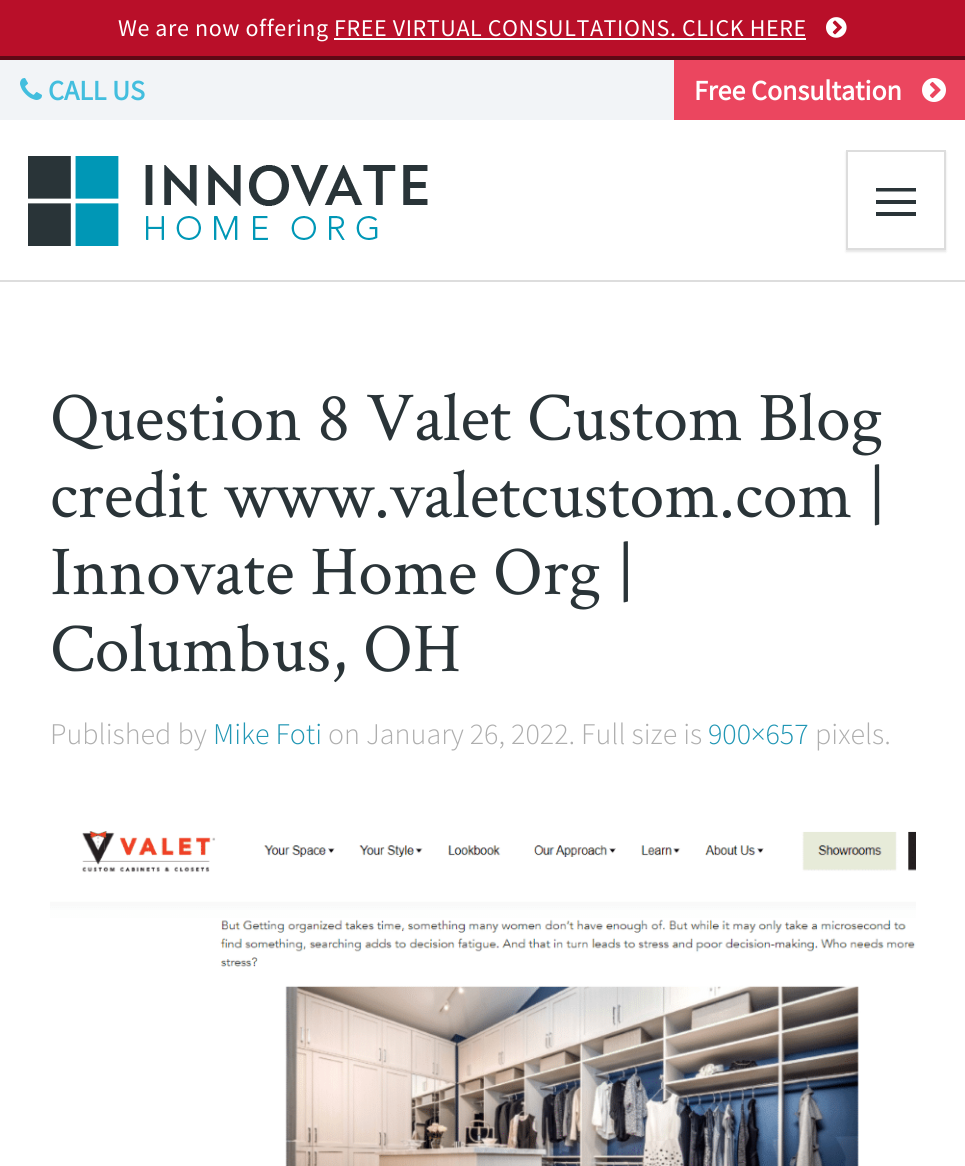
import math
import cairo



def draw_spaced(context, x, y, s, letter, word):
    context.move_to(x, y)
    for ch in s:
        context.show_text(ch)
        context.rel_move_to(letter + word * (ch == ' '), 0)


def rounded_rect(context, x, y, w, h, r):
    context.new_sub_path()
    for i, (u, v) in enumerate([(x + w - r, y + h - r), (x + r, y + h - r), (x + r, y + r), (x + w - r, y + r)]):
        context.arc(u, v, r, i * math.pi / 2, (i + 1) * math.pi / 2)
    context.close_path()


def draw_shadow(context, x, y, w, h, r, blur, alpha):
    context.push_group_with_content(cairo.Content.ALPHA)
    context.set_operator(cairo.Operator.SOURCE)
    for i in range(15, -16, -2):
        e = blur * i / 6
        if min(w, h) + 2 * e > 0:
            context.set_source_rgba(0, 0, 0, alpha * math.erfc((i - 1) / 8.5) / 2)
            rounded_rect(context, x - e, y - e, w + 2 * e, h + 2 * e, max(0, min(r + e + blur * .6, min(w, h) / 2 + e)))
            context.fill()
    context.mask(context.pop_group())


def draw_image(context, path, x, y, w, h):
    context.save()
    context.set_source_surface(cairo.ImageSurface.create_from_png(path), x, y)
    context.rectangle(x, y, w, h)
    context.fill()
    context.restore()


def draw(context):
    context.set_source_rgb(1, 1, 1)
    context.paint()
    context.set_source_rgb(185 / 255, 15 / 255, 41 / 255)
    context.rectangle(0, 0, 965, 56)
    context.fill()
    context.set_source_rgb(95 / 255, 9 / 255, 22 / 255)
    context.rectangle(0, 56, 965, 4)
    context.fill()
    draw_image(context, "images/1.png", 826, 17, 21, 21)
    context.set_source_rgb(1, 1, 1)
    context.rectangle(334, 38, 472, 2)
    context.fill()
    context.set_source_rgb(242 / 255, 244 / 255, 247 / 255)
    context.rectangle(0, 60, 674, 60)
    context.fill()
    draw_image(context, "images/2.png", 20, 78, 22, 22)
    context.set_source_rgb(235 / 255, 70 / 255, 95 / 255)
    context.rectangle(674, 60, 291, 60)
    context.fill()
    draw_image(context, "images/3.png", 922, 78, 24, 24)
    context.set_source_rgb(221 / 255, 221 / 255, 221 / 255)
    context.rectangle(0, 280, 965, 2)
    context.fill()
    draw_image(context, "images/4.png", 28, 156, 400, 90)
    context.save()
    context.set_fill_rule(cairo.FillRule.EVEN_ODD)
    context.new_path()
    context.move_to(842, 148)
    context.line_to(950, 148)
    context.line_to(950, 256)
    context.line_to(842, 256)
    context.close_path()
    context.move_to(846, 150)
    context.line_to(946, 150)
    context.line_to(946, 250)
    context.line_to(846, 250)
    context.close_path()
    context.clip()
    context.set_source_rgb(0, 0, 0)
    draw_shadow(context, 846, 152, 100, 100, 0, 1, 0.1)
    context.restore()
    context.rectangle(847, 151, 98, 98)
    context.stroke()
    context.set_source_rgb(42 / 255, 52 / 255, 56 / 255)
    context.new_path()
    context.move_to(876, 188)
    context.line_to(916, 188)
    context.line_to(916, 191.5)
    context.line_to(876, 191.5)
    context.close_path()
    context.move_to(876, 200)
    context.line_to(916, 200)
    context.line_to(916, 204)
    context.line_to(876, 204)
    context.close_path()
    context.move_to(876, 212)
    context.line_to(916, 212)
    context.line_to(916, 216)
    context.line_to(876, 216)
    context.close_path()
    context.fill()
    draw_image(context, "images/5.png", 50, 831, 866, 335)
    context.select_font_face("Source Sans Pro")
    context.set_font_size(24)
    context.set_source_rgb(1, 1, 1)
    draw_spaced(context, 118, 36, "We are now offering FREE VIRTUAL CONSULTATIONS. CLICK HERE", 0.6, 0)
    context.select_font_face("Source Sans Pro", cairo.FontSlant.NORMAL, cairo.FontWeight.BOLD)
    context.set_font_size(28)
    context.set_source_rgb(67 / 255, 190 / 255, 222 / 255)
    context.move_to(48, 100)
    context.show_text("CALL US")
    context.set_source_rgb(1, 1, 1)
    context.move_to(694, 100)
    context.show_text("Free Consultation")
    context.select_font_face("Crimson Text")
    context.set_font_size(70)
    context.set_source_rgb(42 / 255, 52 / 255, 56 / 255)
    context.move_to(50, 440)
    context.show_text("Question 8 Valet Custom Blog")
    context.move_to(50, 517)
    context.show_text("credit www.valetcustom.com |")
    context.move_to(50, 594)
    context.show_text("Innovate Home Org |")
    context.move_to(50, 671)
    context.show_text("Columbus, OH")
    context.select_font_face("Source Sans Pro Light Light")
    context.set_font_size(30)
    context.set_source_rgb(174 / 255, 174 / 255, 174 / 255)
    context.move_to(50, 744)
    context.show_text("Published by")
    context.set_source_rgb(32 / 255, 150 / 255, 180 / 255)
    context.move_to(213, 744)
    context.show_text("Mike Foti")
    context.set_source_rgb(174 / 255, 174 / 255, 174 / 255)
    context.move_to(328, 744)
    context.show_text("on January 26, 2022. Full size is")
    context.set_source_rgb(32 / 255, 150 / 255, 180 / 255)
    context.move_to(708, 744)
    context.show_text("900×657")
    context.set_source_rgb(174 / 255, 174 / 255, 174 / 255)
    context.move_to(815, 744)
    context.show_text("pixels.")


surface = cairo.ImageSurface(cairo.Format.RGB24, 965, 1166)
context = cairo.Context(surface)
options = cairo.FontOptions()
options.set_hint_metrics(cairo.HintMetrics.OFF)
options.set_hint_style(cairo.HintStyle.NONE)
context.set_font_options(options)
context.set_miter_limit(4)
draw(context)
surface.write_to_png("out.png")
